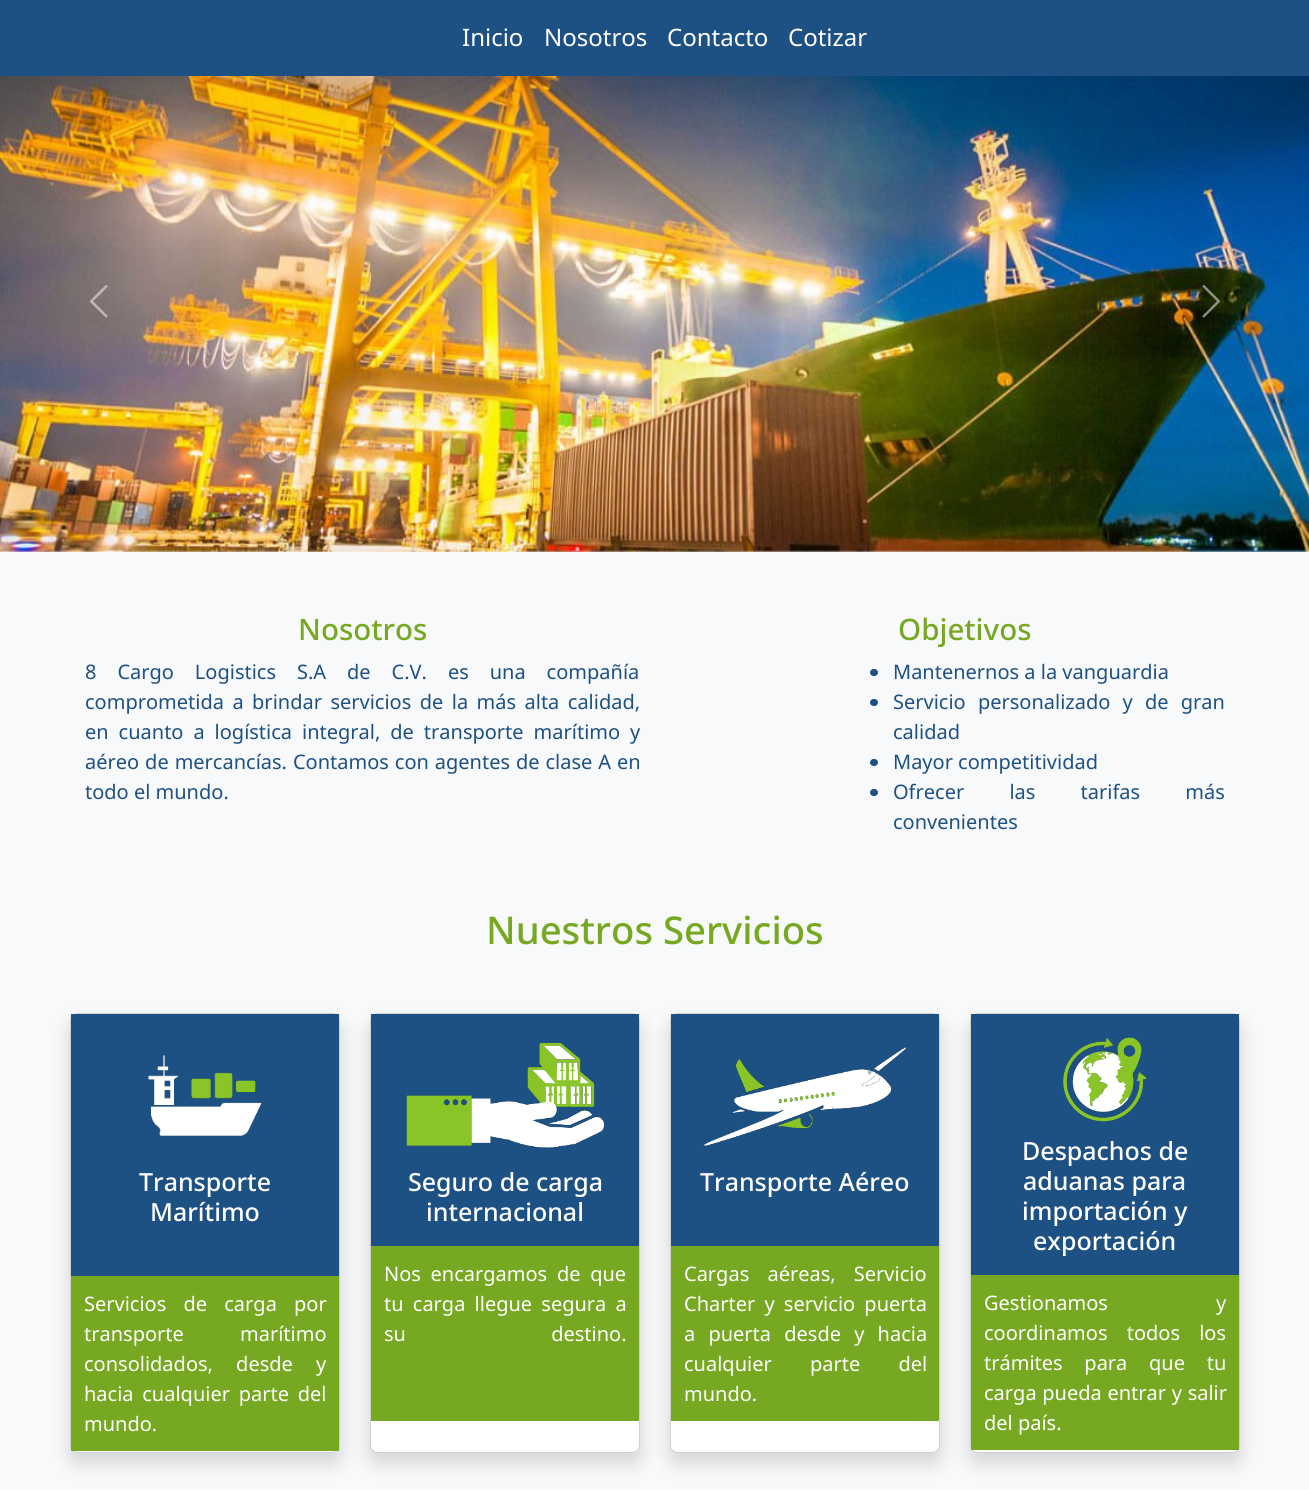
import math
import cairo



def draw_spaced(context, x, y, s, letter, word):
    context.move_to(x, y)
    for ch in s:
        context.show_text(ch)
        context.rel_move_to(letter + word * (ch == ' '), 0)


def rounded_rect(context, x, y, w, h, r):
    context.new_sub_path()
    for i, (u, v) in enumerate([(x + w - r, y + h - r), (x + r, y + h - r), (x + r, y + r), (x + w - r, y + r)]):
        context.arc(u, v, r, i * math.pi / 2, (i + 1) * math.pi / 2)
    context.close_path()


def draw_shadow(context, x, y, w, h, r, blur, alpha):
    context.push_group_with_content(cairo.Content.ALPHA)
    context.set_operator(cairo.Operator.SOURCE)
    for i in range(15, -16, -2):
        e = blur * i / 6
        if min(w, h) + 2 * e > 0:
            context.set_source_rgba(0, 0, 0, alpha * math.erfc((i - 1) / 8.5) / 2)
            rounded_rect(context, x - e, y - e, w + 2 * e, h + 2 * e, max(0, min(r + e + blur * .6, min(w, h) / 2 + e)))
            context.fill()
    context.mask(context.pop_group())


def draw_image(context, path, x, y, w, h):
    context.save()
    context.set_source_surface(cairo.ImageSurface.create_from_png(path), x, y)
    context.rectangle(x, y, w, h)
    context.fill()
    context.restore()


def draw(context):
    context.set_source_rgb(1, 1, 1)
    context.paint()
    context.set_source_rgb(29 / 255, 80 / 255, 131 / 255)
    context.rectangle(0, 0, 1309, 76)
    context.fill()
    context.set_source_rgb(248 / 255, 249 / 255, 250 / 255)
    context.rectangle(0, 551, 1309, 939)
    context.fill()
    draw_image(context, "images/1.png", 0, 76, 1309, 476)
    draw_image(context, "images/2.png", 90, 285, 18, 33)
    draw_image(context, "images/3.png", 1202, 285, 18, 33)
    context.set_source_rgb(29 / 255, 80 / 255, 131 / 255)
    rounded_rect(context, 870, 669, 8, 7, 3.5)
    context.fill()
    rounded_rect(context, 870, 699, 8, 7, 3.5)
    context.fill()
    rounded_rect(context, 870, 759, 8, 7, 3.5)
    context.fill()
    rounded_rect(context, 870, 789, 8, 7, 3.5)
    context.fill()
    context.set_source_rgb(0, 0, 0)
    draw_shadow(context, 70, 1023, 270, 440, 8, 10, 0.15)
    context.set_source_rgb(1, 1, 1)
    rounded_rect(context, 70, 1013, 270, 440, 8)
    context.fill()
    rounded_rect(context, 70.5, 1013.5, 269, 439, 7.5)
    context.set_source_rgba(0, 0, 0, 0.18)
    context.set_line_width(1)
    context.stroke()
    context.set_source_rgb(29 / 255, 80 / 255, 131 / 255)
    context.rectangle(71, 1014, 268, 262)
    context.fill()
    draw_image(context, "images/4.png", 148, 1055, 114, 81)
    context.set_source_rgb(119 / 255, 168 / 255, 33 / 255)
    context.rectangle(71, 1276, 268, 175)
    context.fill()
    context.set_source_rgb(0, 0, 0)
    draw_shadow(context, 370, 1023, 270, 440, 8, 10, 0.15)
    context.set_source_rgb(1, 1, 1)
    rounded_rect(context, 370, 1013, 270, 440, 8)
    context.fill()
    rounded_rect(context, 370.5, 1013.5, 269, 439, 7.5)
    context.set_source_rgba(0, 0, 0, 0.18)
    context.stroke()
    context.set_source_rgb(29 / 255, 80 / 255, 131 / 255)
    context.rectangle(371, 1014, 268, 232)
    context.fill()
    draw_image(context, "images/5.png", 406, 1043, 199, 105)
    context.set_source_rgb(119 / 255, 168 / 255, 33 / 255)
    context.rectangle(371, 1246, 268, 175)
    context.fill()
    context.set_source_rgb(0, 0, 0)
    draw_shadow(context, 670, 1023, 270, 440, 8, 10, 0.15)
    context.set_source_rgb(1, 1, 1)
    rounded_rect(context, 670, 1013, 270, 440, 8)
    context.fill()
    rounded_rect(context, 670.5, 1013.5, 269, 439, 7.5)
    context.set_source_rgba(0, 0, 0, 0.18)
    context.stroke()
    context.set_source_rgb(29 / 255, 80 / 255, 131 / 255)
    context.rectangle(671, 1014, 268, 232)
    context.fill()
    draw_image(context, "images/6.png", 703, 1047, 203, 99)
    context.set_source_rgb(119 / 255, 168 / 255, 33 / 255)
    context.rectangle(671, 1246, 268, 175)
    context.fill()
    context.set_source_rgb(0, 0, 0)
    draw_shadow(context, 970, 1023, 270, 440, 8, 10, 0.15)
    context.set_source_rgb(1, 1, 1)
    rounded_rect(context, 970, 1013, 270, 440, 8)
    context.fill()
    rounded_rect(context, 970.5, 1013.5, 269, 439, 7.5)
    context.set_source_rgba(0, 0, 0, 0.18)
    context.stroke()
    context.set_source_rgb(29 / 255, 80 / 255, 131 / 255)
    context.rectangle(971, 1014, 268, 261)
    context.fill()
    draw_image(context, "images/7.png", 1063, 1037, 84, 85)
    context.set_source_rgb(119 / 255, 168 / 255, 33 / 255)
    context.rectangle(971, 1275, 268, 175)
    context.fill()
    context.select_font_face("Noto Sans")
    context.set_font_size(24)
    context.set_source_rgb(1, 1, 1)
    context.move_to(462, 46)
    context.show_text("Inicio")
    context.move_to(544, 46)
    context.show_text("Nosotros")
    context.move_to(667, 46)
    context.show_text("Contacto")
    context.move_to(788, 46)
    context.show_text("Cotizar")
    context.select_font_face("Noto Sans Medium")
    context.set_font_size(29.5)
    context.set_source_rgb(119 / 255, 168 / 255, 33 / 255)
    context.move_to(298, 640)
    context.show_text("Nosotros")
    context.select_font_face("Noto Sans")
    context.set_font_size(20)
    context.set_source_rgb(29 / 255, 80 / 255, 131 / 255)
    draw_spaced(context, 85, 679, "8 Cargo Logistics S.A de C.V. es una compañía", 0, 15.75)
    draw_spaced(context, 85, 709, "comprometida a brindar servicios de la más alta calidad,", 0, 3.25)
    draw_spaced(context, 85, 739, "en cuanto a logística integral, de transporte marítimo y", 0, 4.75)
    draw_spaced(context, 85, 769, "aéreo de mercancías. Contamos con agentes de clase A en", 0, 0.75)
    context.move_to(85, 799)
    context.show_text("todo el mundo.")
    context.select_font_face("Noto Sans Medium")
    context.set_font_size(29.5)
    context.set_source_rgb(119 / 255, 168 / 255, 33 / 255)
    context.move_to(898, 640)
    context.show_text("Objetivos")
    context.select_font_face("Noto Sans")
    context.set_font_size(20)
    context.set_source_rgb(29 / 255, 80 / 255, 131 / 255)
    context.move_to(893, 679)
    context.show_text("Mantenernos a la vanguardia")
    draw_spaced(context, 893, 709, "Servicio personalizado y de gran", 0, 7)
    context.move_to(893, 739)
    context.show_text("calidad")
    context.move_to(893, 769)
    context.show_text("Mayor competitividad")
    draw_spaced(context, 893, 799, "Ofrecer las tarifas más", 0, 40)
    context.move_to(893, 829)
    context.show_text("convenientes")
    context.select_font_face("Noto Sans Medium")
    context.set_font_size(38.25)
    context.set_source_rgb(119 / 255, 168 / 255, 33 / 255)
    context.move_to(486, 944)
    context.show_text("Nuestros Servicios")
    context.set_font_size(25)
    context.set_source_rgb(1, 1, 1)
    context.move_to(139, 1191)
    context.show_text("Transporte")
    context.move_to(150, 1221)
    context.show_text("Marítimo")
    context.select_font_face("Noto Sans")
    context.set_font_size(20)
    draw_spaced(context, 84, 1311, "Servicios de carga por", 0, 12)
    draw_spaced(context, 84, 1341, "transporte marítimo", 0, 51)
    draw_spaced(context, 84, 1371, "consolidados, desde y", 0, 18)
    draw_spaced(context, 84, 1401, "hacia cualquier parte del", 0, 3.5)
    context.move_to(84, 1431)
    context.show_text("mundo.")
    context.select_font_face("Noto Sans Medium")
    context.set_font_size(25)
    context.move_to(408, 1191)
    context.show_text("Seguro de carga")
    context.move_to(426, 1221)
    context.show_text("internacional")
    context.select_font_face("Noto Sans")
    context.set_font_size(20)
    draw_spaced(context, 384, 1281, "Nos encargamos de que", 0, 4.5)
    draw_spaced(context, 384, 1311, "tu carga llegue segura a", 0, 4)
    draw_spaced(context, 384, 1341, "su destino.", 0, 140)
    context.select_font_face("Noto Sans Medium")
    context.set_font_size(25)
    context.move_to(700, 1191)
    context.show_text("Transporte Aéreo")
    context.select_font_face("Noto Sans")
    context.set_font_size(20)
    draw_spaced(context, 684, 1281, "Cargas aéreas, Servicio", 0, 13)
    draw_spaced(context, 684, 1311, "Charter y servicio puerta", 0, 4)
    draw_spaced(context, 684, 1341, "a puerta desde y hacia", 0, 8)
    draw_spaced(context, 684, 1371, "cualquier parte del", 0, 33)
    context.move_to(684, 1401)
    context.show_text("mundo.")
    context.select_font_face("Noto Sans Medium")
    context.set_font_size(25)
    context.move_to(1022, 1160)
    context.show_text("Despachos de")
    context.move_to(1023, 1190)
    context.show_text("aduanas para")
    context.move_to(1022, 1220)
    context.show_text("importación y")
    context.move_to(1033, 1250)
    context.show_text("exportación")
    context.select_font_face("Noto Sans")
    context.set_font_size(20)
    draw_spaced(context, 984, 1310, "Gestionamos y", 0, 103)
    draw_spaced(context, 984, 1340, "coordinamos todos los", 0, 14)
    draw_spaced(context, 984, 1370, "trámites para que tu", 0, 16.5)
    draw_spaced(context, 984, 1400, "carga pueda entrar y salir", 0, 0.5)
    context.move_to(984, 1430)
    context.show_text("del país.")


surface = cairo.ImageSurface(cairo.Format.RGB24, 1309, 1490)
context = cairo.Context(surface)
options = cairo.FontOptions()
options.set_hint_metrics(cairo.HintMetrics.OFF)
options.set_hint_style(cairo.HintStyle.NONE)
context.set_font_options(options)
context.set_miter_limit(4)
draw(context)
surface.write_to_png("out.png")
